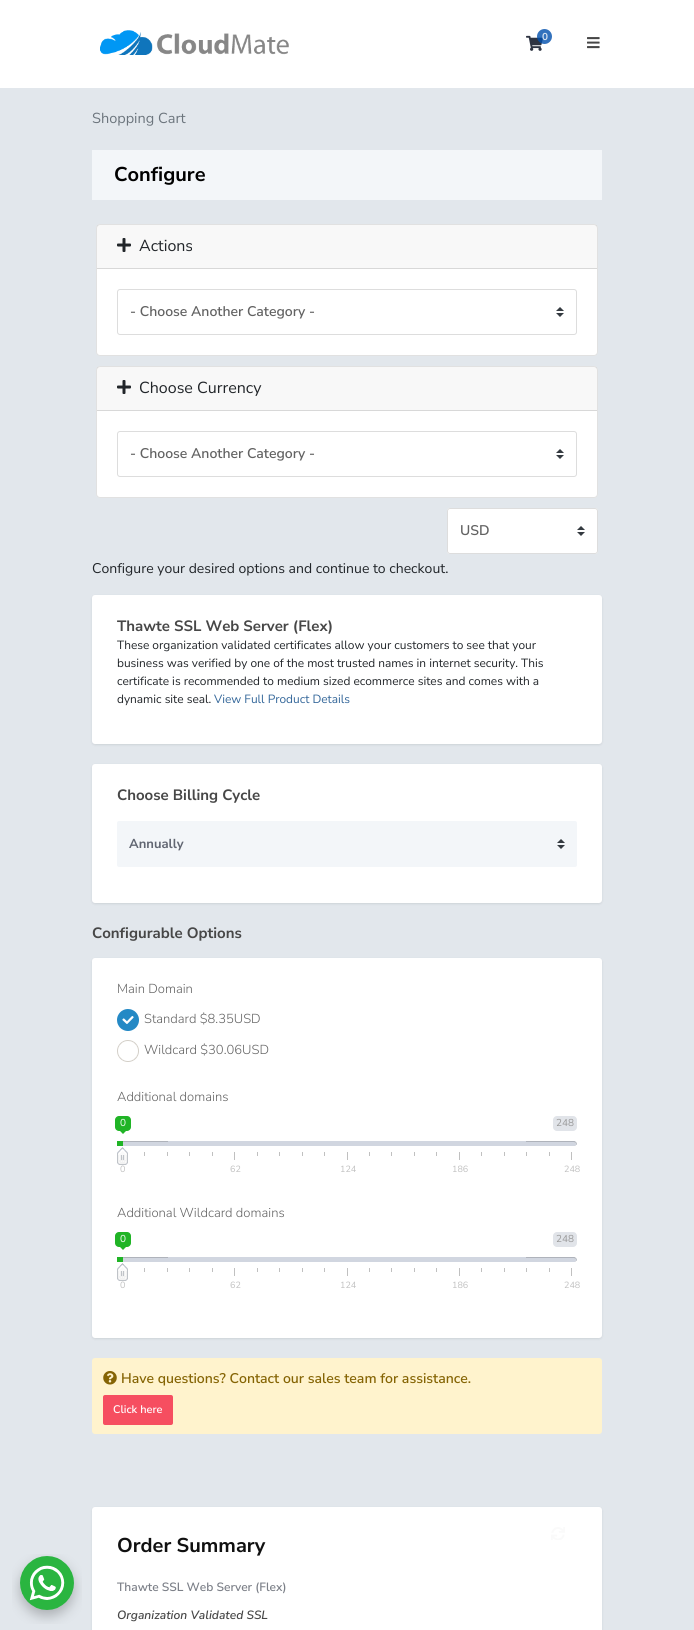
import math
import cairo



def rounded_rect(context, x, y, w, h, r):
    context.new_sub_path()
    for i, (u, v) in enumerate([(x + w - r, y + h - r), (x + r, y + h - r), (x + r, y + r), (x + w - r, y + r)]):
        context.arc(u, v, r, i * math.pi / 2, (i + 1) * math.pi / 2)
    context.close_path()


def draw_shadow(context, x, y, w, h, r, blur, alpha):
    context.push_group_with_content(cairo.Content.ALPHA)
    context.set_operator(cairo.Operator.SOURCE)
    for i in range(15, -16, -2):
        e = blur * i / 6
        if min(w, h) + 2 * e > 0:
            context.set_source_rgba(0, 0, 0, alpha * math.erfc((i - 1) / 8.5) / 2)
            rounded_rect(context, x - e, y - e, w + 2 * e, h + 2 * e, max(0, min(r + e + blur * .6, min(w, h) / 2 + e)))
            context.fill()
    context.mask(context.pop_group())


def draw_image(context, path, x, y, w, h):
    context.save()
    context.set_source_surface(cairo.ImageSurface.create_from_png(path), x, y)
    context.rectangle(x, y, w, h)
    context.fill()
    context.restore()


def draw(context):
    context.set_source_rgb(1, 1, 1)
    context.paint()
    draw_image(context, "images/1.png", 100, 30, 189, 25)
    draw_image(context, "images/2.png", 526, 35, 17, 16)
    context.set_source_rgba(0, 79 / 255, 172 / 255, 0.8)
    context.arc(544.5, 36.5, 7.5, 0, 2 * math.pi)
    context.fill()
    draw_image(context, "images/3.png", 587, 37, 13, 12)
    context.set_source_rgb(226 / 255, 231 / 255, 236 / 255)
    context.rectangle(0, 88, 694, 1542)
    context.fill()
    draw_image(context, "images/4.png", 12, 1554, 70, 70)
    context.set_source_rgb(243 / 255, 246 / 255, 249 / 255)
    context.rectangle(92, 150, 510, 50)
    context.fill()
    context.set_source_rgb(1, 1, 1)
    rounded_rect(context, 96, 224, 502, 132, 4)
    context.fill()
    rounded_rect(context, 96.5, 224.5, 501, 131, 3.5)
    context.set_source_rgba(0, 0, 0, 0.12)
    context.set_line_width(1)
    context.stroke()
    context.set_source_rgba(0, 0, 0, 0.03)
    context.rectangle(97, 225, 500, 43)
    context.fill()
    context.set_source_rgb(216 / 255, 216 / 255, 216 / 255)
    context.rectangle(97, 268, 500, 1)
    context.fill()
    draw_image(context, "images/5.png", 117, 238, 14, 14)
    draw_image(context, "images/6.png", 556, 307, 8, 10)
    rounded_rect(context, 117.5, 289.5, 459, 45, 2.5)
    context.set_source_rgb(221 / 255, 221 / 255, 221 / 255)
    context.stroke()
    context.set_source_rgb(1, 1, 1)
    rounded_rect(context, 96, 366, 502, 132, 4)
    context.fill()
    rounded_rect(context, 96.5, 366.5, 501, 131, 3.5)
    context.set_source_rgba(0, 0, 0, 0.12)
    context.stroke()
    context.set_source_rgba(0, 0, 0, 0.03)
    context.rectangle(97, 367, 500, 43)
    context.fill()
    context.set_source_rgb(216 / 255, 216 / 255, 216 / 255)
    context.rectangle(97, 410, 500, 1)
    context.fill()
    draw_image(context, "images/5.png", 117, 380, 14, 14)
    draw_image(context, "images/6.png", 556, 449, 8, 10)
    rounded_rect(context, 117.5, 431.5, 459, 45, 2.5)
    context.set_source_rgb(221 / 255, 221 / 255, 221 / 255)
    context.stroke()
    context.set_source_rgb(1, 1, 1)
    rounded_rect(context, 447, 508, 151, 46, 3)
    context.fill()
    draw_image(context, "images/6.png", 577, 526, 8, 10)
    rounded_rect(context, 447.5, 508.5, 150, 45, 2.5)
    context.set_source_rgb(221 / 255, 221 / 255, 221 / 255)
    context.stroke()
    context.set_source_rgb(42 / 255, 46 / 255, 54 / 255)
    draw_shadow(context, 92, 596, 510, 149, 3, 1, 0.11)
    context.set_source_rgb(1, 1, 1)
    rounded_rect(context, 92, 595, 510, 149, 3)
    context.fill()
    context.set_source_rgb(42 / 255, 46 / 255, 54 / 255)
    draw_shadow(context, 92, 765, 510, 139, 3, 1, 0.11)
    context.set_source_rgb(1, 1, 1)
    rounded_rect(context, 92, 764, 510, 139, 3)
    context.fill()
    context.set_source_rgb(243 / 255, 246 / 255, 249 / 255)
    rounded_rect(context, 117, 821, 460, 46, 2)
    context.fill()
    draw_image(context, "images/7.png", 557, 839, 8, 10)
    context.set_source_rgb(42 / 255, 46 / 255, 54 / 255)
    draw_shadow(context, 92, 959, 510, 380, 3, 1, 0.11)
    context.set_source_rgb(1, 1, 1)
    rounded_rect(context, 92, 958, 510, 380, 3)
    context.fill()
    draw_image(context, "images/8.png", 117, 1009, 22, 22)
    draw_image(context, "images/9.png", 117, 1040, 22, 22)
    context.set_source_rgb(32 / 255, 180 / 255, 38 / 255)
    rounded_rect(context, 115, 1116, 16, 15, 4)
    context.fill()
    context.new_path()
    context.move_to(120, 1131)
    context.line_to(126, 1131)
    context.line_to(123, 1134)
    context.close_path()
    context.fill()
    context.set_source_rgb(225 / 255, 228 / 255, 233 / 255)
    rounded_rect(context, 553, 1116, 24, 15, 4)
    context.fill()
    draw_image(context, "images/10.png", 123, 1141, 45, 5)
    context.set_source_rgb(209 / 255, 214 / 255, 224 / 255)
    context.rectangle(168, 1141, 358, 5)
    context.fill()
    draw_image(context, "images/11.png", 526, 1141, 51, 5)
    context.set_source_rgb(32 / 255, 180 / 255, 38 / 255)
    context.rectangle(117, 1141, 6, 5)
    context.fill()
    draw_image(context, "images/12.png", 117, 1147, 11, 18)
    context.set_source_rgb(192 / 255, 192 / 255, 192 / 255)
    context.rectangle(144, 1152, 1, 4)
    context.fill()
    context.rectangle(167, 1152, 1, 4)
    context.fill()
    context.rectangle(189, 1152, 1, 4)
    context.fill()
    context.rectangle(212, 1152, 1, 4)
    context.fill()
    context.rectangle(234, 1152, 1, 8)
    context.fill()
    context.rectangle(257, 1152, 1, 4)
    context.fill()
    context.rectangle(279, 1152, 1, 4)
    context.fill()
    context.rectangle(302, 1152, 1, 4)
    context.fill()
    context.rectangle(324, 1152, 1, 4)
    context.fill()
    context.rectangle(347, 1152, 1, 8)
    context.fill()
    context.rectangle(369, 1152, 1, 4)
    context.fill()
    context.rectangle(391, 1152, 1, 4)
    context.fill()
    context.rectangle(414, 1152, 1, 4)
    context.fill()
    context.rectangle(436, 1152, 1, 4)
    context.fill()
    context.rectangle(459, 1152, 1, 8)
    context.fill()
    context.rectangle(481, 1152, 1, 4)
    context.fill()
    context.rectangle(504, 1152, 1, 4)
    context.fill()
    context.rectangle(526, 1152, 1, 4)
    context.fill()
    context.rectangle(549, 1152, 1, 4)
    context.fill()
    context.rectangle(571, 1152, 1, 8)
    context.fill()
    context.set_source_rgb(32 / 255, 180 / 255, 38 / 255)
    rounded_rect(context, 115, 1232, 16, 15, 4)
    context.fill()
    context.new_path()
    context.move_to(120, 1247)
    context.line_to(126, 1247)
    context.line_to(123, 1250)
    context.close_path()
    context.fill()
    context.set_source_rgb(225 / 255, 228 / 255, 233 / 255)
    rounded_rect(context, 553, 1232, 24, 15, 4)
    context.fill()
    draw_image(context, "images/10.png", 123, 1257, 45, 5)
    context.set_source_rgb(209 / 255, 214 / 255, 224 / 255)
    context.rectangle(168, 1257, 358, 5)
    context.fill()
    draw_image(context, "images/11.png", 526, 1257, 51, 5)
    context.set_source_rgb(32 / 255, 180 / 255, 38 / 255)
    context.rectangle(117, 1257, 6, 5)
    context.fill()
    draw_image(context, "images/12.png", 117, 1263, 11, 18)
    context.set_source_rgb(192 / 255, 192 / 255, 192 / 255)
    context.rectangle(144, 1268, 1, 4)
    context.fill()
    context.rectangle(167, 1268, 1, 4)
    context.fill()
    context.rectangle(189, 1268, 1, 4)
    context.fill()
    context.rectangle(212, 1268, 1, 4)
    context.fill()
    context.rectangle(234, 1268, 1, 8)
    context.fill()
    context.rectangle(257, 1268, 1, 4)
    context.fill()
    context.rectangle(279, 1268, 1, 4)
    context.fill()
    context.rectangle(302, 1268, 1, 4)
    context.fill()
    context.rectangle(324, 1268, 1, 4)
    context.fill()
    context.rectangle(347, 1268, 1, 8)
    context.fill()
    context.rectangle(369, 1268, 1, 4)
    context.fill()
    context.rectangle(391, 1268, 1, 4)
    context.fill()
    context.rectangle(414, 1268, 1, 4)
    context.fill()
    context.rectangle(436, 1268, 1, 4)
    context.fill()
    context.rectangle(459, 1268, 1, 8)
    context.fill()
    context.rectangle(481, 1268, 1, 4)
    context.fill()
    context.rectangle(504, 1268, 1, 4)
    context.fill()
    context.rectangle(526, 1268, 1, 4)
    context.fill()
    context.rectangle(549, 1268, 1, 4)
    context.fill()
    context.rectangle(571, 1268, 1, 8)
    context.fill()
    context.set_source_rgb(1, 243 / 255, 205 / 255)
    rounded_rect(context, 92, 1358, 510, 76, 3)
    context.fill()
    draw_image(context, "images/13.png", 103, 1371, 14, 14)
    context.set_source_rgb(246 / 255, 78 / 255, 96 / 255)
    rounded_rect(context, 103, 1395, 70, 30, 2)
    context.fill()
    context.set_source_rgb(42 / 255, 46 / 255, 54 / 255)
    draw_shadow(context, 92, 1508, 510, 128, 3, 1, 0.11)
    context.set_source_rgb(1, 1, 1)
    rounded_rect(context, 92, 1507, 510, 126, 3)
    context.fill()
    draw_image(context, "images/14.png", 551, 1527, 14, 13)
    context.select_font_face("Nunito Sans", cairo.FontSlant.NORMAL, cairo.FontWeight.BOLD)
    context.set_font_size(10)
    context.set_source_rgb(214 / 255, 226 / 255, 241 / 255)
    context.move_to(542, 40)
    context.show_text("0")
    context.select_font_face("Nunito Sans")
    context.set_font_size(14.5)
    context.set_source_rgb(108 / 255, 117 / 255, 125 / 255)
    context.move_to(92, 123)
    context.show_text("Shopping Cart")
    context.select_font_face("Nunito Sans", cairo.FontSlant.NORMAL, cairo.FontWeight.BOLD)
    context.set_font_size(20)
    context.set_source_rgb(0, 0, 0)
    context.move_to(114, 181)
    context.show_text("Configure")
    context.select_font_face("Nunito Sans")
    context.set_font_size(16)
    context.set_source_rgb(33 / 255, 37 / 255, 41 / 255)
    context.move_to(139, 251)
    context.show_text("Actions")
    context.select_font_face("Nunito Sans SemiBold")
    context.set_font_size(14)
    context.set_source_rgb(98 / 255, 98 / 255, 98 / 255)
    context.move_to(130, 316)
    context.show_text("- Choose Another Category -")
    context.select_font_face("Nunito Sans")
    context.set_font_size(16)
    context.set_source_rgb(33 / 255, 37 / 255, 41 / 255)
    context.move_to(139, 393)
    context.show_text("Choose Currency")
    context.select_font_face("Nunito Sans SemiBold")
    context.set_font_size(14)
    context.set_source_rgb(98 / 255, 98 / 255, 98 / 255)
    context.move_to(130, 458)
    context.show_text("- Choose Another Category -")
    context.move_to(460, 535)
    context.show_text("USD")
    context.select_font_face("Nunito Sans")
    context.set_source_rgb(33 / 255, 37 / 255, 41 / 255)
    context.move_to(92, 573)
    context.show_text("Configure your desired options and continue to checkout.")
    context.select_font_face("Nunito Sans", cairo.FontSlant.NORMAL, cairo.FontWeight.BOLD)
    context.set_font_size(15)
    context.set_source_rgb(71 / 255, 71 / 255, 71 / 255)
    context.move_to(117, 631)
    context.show_text("Thawte SSL Web Server (Flex)")
    context.select_font_face("Nunito Sans")
    context.set_font_size(11.9)
    context.set_source_rgb(33 / 255, 37 / 255, 41 / 255)
    context.move_to(117, 649)
    context.show_text("These organization validated certificates allow your customers to see that your")
    context.move_to(117, 667)
    context.show_text("business was verified by one of the most trusted names in internet security. This")
    context.move_to(117, 685)
    context.show_text("certificate is recommended to medium sized ecommerce sites and comes with a")
    context.move_to(117, 703)
    context.show_text("dynamic site seal.")
    context.set_source_rgb(51 / 255, 102 / 255, 153 / 255)
    context.move_to(214, 703)
    context.show_text("View Full Product Details")
    context.select_font_face("Nunito Sans", cairo.FontSlant.NORMAL, cairo.FontWeight.BOLD)
    context.set_font_size(15)
    context.set_source_rgb(71 / 255, 71 / 255, 71 / 255)
    context.move_to(117, 800)
    context.show_text("Choose Billing Cycle")
    context.set_font_size(13)
    context.set_source_rgb(97 / 255, 102 / 255, 114 / 255)
    context.move_to(129, 848)
    context.show_text("Annually")
    context.set_font_size(15)
    context.set_source_rgb(71 / 255, 71 / 255, 71 / 255)
    context.move_to(92, 938)
    context.show_text("Configurable Options")
    context.select_font_face("Nunito Sans Light")
    context.set_font_size(13)
    context.set_source_rgb(98 / 255, 98 / 255, 98 / 255)
    context.move_to(117, 993)
    context.show_text("Main Domain")
    context.move_to(144, 1023)
    context.show_text("Standard $8.35USD")
    context.move_to(144, 1054)
    context.show_text("Wildcard $30.06USD")
    context.move_to(117, 1101)
    context.show_text("Additional domains")
    context.select_font_face("Nunito Sans")
    context.set_font_size(10)
    context.set_source_rgb(1, 1, 1)
    context.move_to(120, 1126)
    context.show_text("0")
    context.set_source_rgb(153 / 255, 153 / 255, 153 / 255)
    context.move_to(556, 1126)
    context.show_text("248")
    context.set_font_size(9)
    context.set_source_rgb(192 / 255, 192 / 255, 192 / 255)
    context.move_to(120, 1172)
    context.show_text("0")
    context.move_to(230, 1172)
    context.show_text("62")
    context.move_to(340, 1172)
    context.show_text("124")
    context.move_to(452, 1172)
    context.show_text("186")
    context.move_to(564, 1172)
    context.show_text("248")
    context.select_font_face("Nunito Sans Light")
    context.set_font_size(13)
    context.set_source_rgb(98 / 255, 98 / 255, 98 / 255)
    context.move_to(117, 1217)
    context.show_text("Additional Wildcard domains")
    context.select_font_face("Nunito Sans")
    context.set_font_size(10)
    context.set_source_rgb(1, 1, 1)
    context.move_to(120, 1242)
    context.show_text("0")
    context.set_source_rgb(153 / 255, 153 / 255, 153 / 255)
    context.move_to(556, 1242)
    context.show_text("248")
    context.set_font_size(9)
    context.set_source_rgb(192 / 255, 192 / 255, 192 / 255)
    context.move_to(120, 1288)
    context.show_text("0")
    context.move_to(230, 1288)
    context.show_text("62")
    context.move_to(340, 1288)
    context.show_text("124")
    context.move_to(452, 1288)
    context.show_text("186")
    context.move_to(564, 1288)
    context.show_text("248")
    context.select_font_face("Nunito Sans SemiBold")
    context.set_font_size(14)
    context.set_source_rgb(133 / 255, 100 / 255, 4 / 255)
    context.move_to(121, 1383)
    context.show_text("Have questions? Contact our sales team for assistance.")
    context.set_font_size(11)
    context.set_source_rgb(1, 1, 1)
    context.move_to(113, 1413)
    context.show_text("Click here")
    context.select_font_face("Nunito Sans", cairo.FontSlant.NORMAL, cairo.FontWeight.BOLD)
    context.set_font_size(20)
    context.set_source_rgb(16 / 255, 16 / 255, 16 / 255)
    context.move_to(117, 1552)
    context.show_text("Order Summary")
    context.select_font_face("Nunito Sans SemiBold")
    context.set_font_size(12)
    context.set_source_rgb(124 / 255, 128 / 255, 136 / 255)
    context.move_to(117, 1591)
    context.show_text("Thawte SSL Web Server (Flex)")
    context.select_font_face("Nunito Sans SemiBold", cairo.FontSlant.ITALIC)
    context.set_source_rgb(71 / 255, 71 / 255, 71 / 255)
    context.move_to(117, 1619)
    context.show_text("Organization Validated SSL")


surface = cairo.ImageSurface(cairo.Format.RGB24, 694, 1630)
context = cairo.Context(surface)
options = cairo.FontOptions()
options.set_hint_metrics(cairo.HintMetrics.OFF)
options.set_hint_style(cairo.HintStyle.NONE)
context.set_font_options(options)
context.set_miter_limit(4)
draw(context)
surface.write_to_png("out.png")
